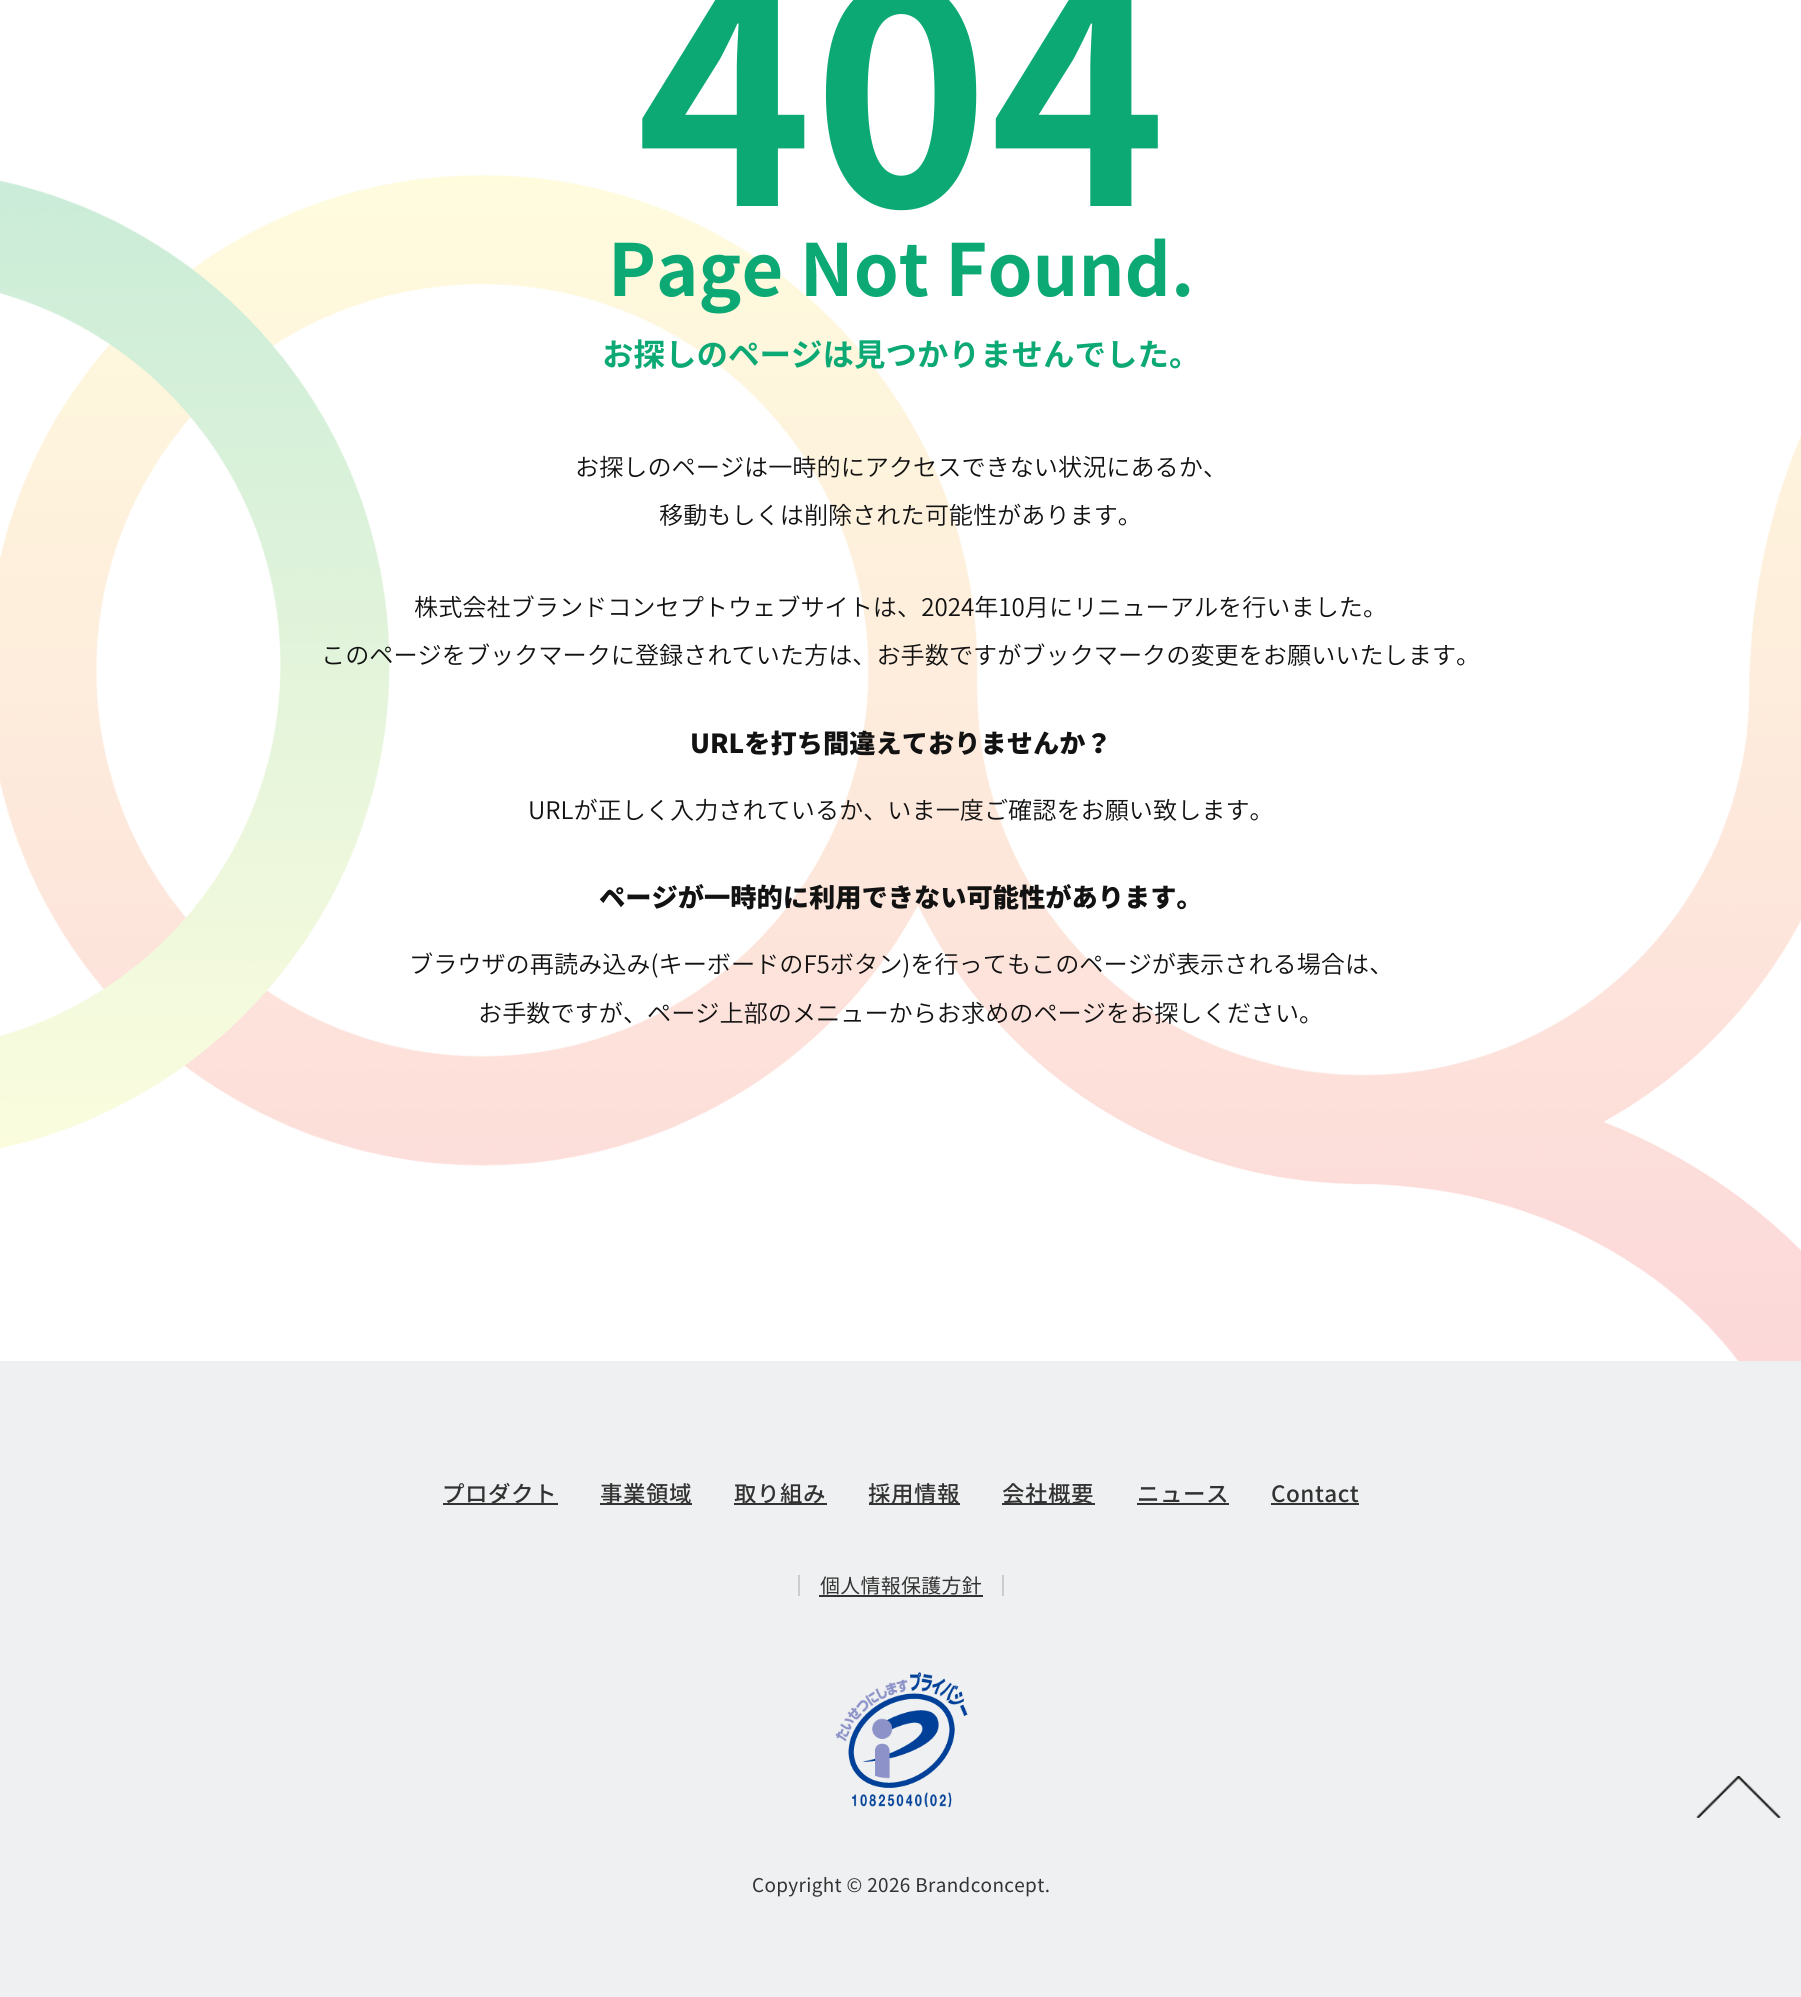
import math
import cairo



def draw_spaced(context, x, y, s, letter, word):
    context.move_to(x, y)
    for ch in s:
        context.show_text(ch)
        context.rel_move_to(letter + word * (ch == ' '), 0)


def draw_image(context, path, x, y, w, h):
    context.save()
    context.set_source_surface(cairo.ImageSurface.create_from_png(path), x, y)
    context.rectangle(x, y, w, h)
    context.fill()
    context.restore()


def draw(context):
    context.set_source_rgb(1, 1, 1)
    context.paint()
    context.set_source_rgb(239 / 255, 240 / 255, 241 / 255)
    context.rectangle(0, 1361, 1801, 636)
    context.fill()
    context.set_source_rgb(51 / 255, 51 / 255, 51 / 255)
    context.rectangle(443, 1503, 115, 2)
    context.fill()
    context.rectangle(600, 1503, 92, 2)
    context.fill()
    context.rectangle(734, 1503, 93, 2)
    context.fill()
    context.rectangle(869, 1503, 91, 2)
    context.fill()
    context.rectangle(1002, 1503, 93, 2)
    context.fill()
    context.rectangle(1137, 1503, 92, 2)
    context.fill()
    context.rectangle(1271, 1503, 88, 2)
    context.fill()
    context.set_source_rgb(204 / 255, 204 / 255, 204 / 255)
    context.rectangle(1002, 1575, 2, 21)
    context.fill()
    context.rectangle(798, 1575, 2, 21)
    context.fill()
    context.set_source_rgb(51 / 255, 51 / 255, 51 / 255)
    context.rectangle(819, 1595, 164, 2)
    context.fill()
    draw_image(context, "images/1.png", 835, 1672, 133, 136)
    draw_image(context, "images/2.png", 0, 175, 1801, 1186)
    draw_image(context, "images/3.png", 1696, 1776, 85, 42)
    context.select_font_face("Noto Sans JP", cairo.FontSlant.NORMAL, cairo.FontWeight.BOLD)
    context.set_font_size(300)
    context.set_source_rgb(12 / 255, 169 / 255, 117 / 255)
    context.move_to(636, 206)
    context.show_text("404")
    context.set_font_size(72)
    context.move_to(608, 296)
    context.show_text("Page Not Found.")
    context.set_font_size(31.5)
    context.move_to(602, 366)
    context.show_text("お探しのページは見つかりませんでした。")
    context.select_font_face("Noto Sans JP Light")
    context.set_font_size(24.15)
    context.set_source_rgb(18 / 255, 18 / 255, 18 / 255)
    context.move_to(575, 476)
    context.show_text("お探しのページは一時的にアクセスできない状況にあるか、")
    context.move_to(659, 524)
    context.show_text("移動もしくは削除された可能性があります。")
    context.move_to(414, 616)
    context.show_text("株式会社ブランドコンセプトウェブサイトは、2024年10月にリニューアルを行いました。")
    context.move_to(321, 664)
    context.show_text("このページをブックマークに登録されていた方は、お手数ですがブックマークの変更をお願いいたします。")
    context.select_font_face("Noto Sans JP Black")
    context.set_font_size(26.25)
    context.move_to(690, 753)
    context.show_text("URLを打ち間違えておりませんか？")
    context.select_font_face("Noto Sans JP Light")
    context.set_font_size(24.15)
    context.move_to(528, 819)
    context.show_text("URLが正しく入力されているか、いま一度ご確認をお願い致します。")
    context.select_font_face("Noto Sans JP Black")
    context.set_font_size(26.25)
    context.move_to(599, 907)
    context.show_text("ページが一時的に利用できない可能性があります。")
    context.select_font_face("Noto Sans JP Light")
    context.set_font_size(24.15)
    context.move_to(409, 973)
    context.show_text("ブラウザの再読み込み(キーボードのF5ボタン)を行ってもこのページが表示される場合は、")
    context.move_to(478, 1022)
    context.show_text("お手数ですが、ページ上部のメニューからお求めのページをお探しください。")
    context.select_font_face("Noto Sans JP Medium")
    context.set_font_size(22.5)
    context.set_source_rgb(51 / 255, 51 / 255, 51 / 255)
    draw_spaced(context, 442, 1502, "プロダクト", 0.5, 0)
    draw_spaced(context, 600, 1502, "事業領域", 0.5, 0)
    draw_spaced(context, 734, 1502, "取り組み", 0.5, 0)
    draw_spaced(context, 868, 1502, "採用情報", 0.5, 0)
    draw_spaced(context, 1002, 1502, "会社概要", 0.5, 0)
    draw_spaced(context, 1137, 1502, "ニュース", 0.5, 0)
    draw_spaced(context, 1271, 1502, "Contact", 0.5, 0)
    context.select_font_face("Noto Sans JP")
    context.set_font_size(20)
    draw_spaced(context, 820, 1593, "個人情報保護方針", 0.25, 0)
    context.set_font_size(18.9)
    draw_spaced(context, 752, 1892, "Copyright © 2026 Brandconcept.", 0.35, 0)


surface = cairo.ImageSurface(cairo.Format.RGB24, 1801, 1997)
context = cairo.Context(surface)
options = cairo.FontOptions()
options.set_hint_metrics(cairo.HintMetrics.OFF)
options.set_hint_style(cairo.HintStyle.NONE)
context.set_font_options(options)
context.set_miter_limit(4)
draw(context)
surface.write_to_png("out.png")
